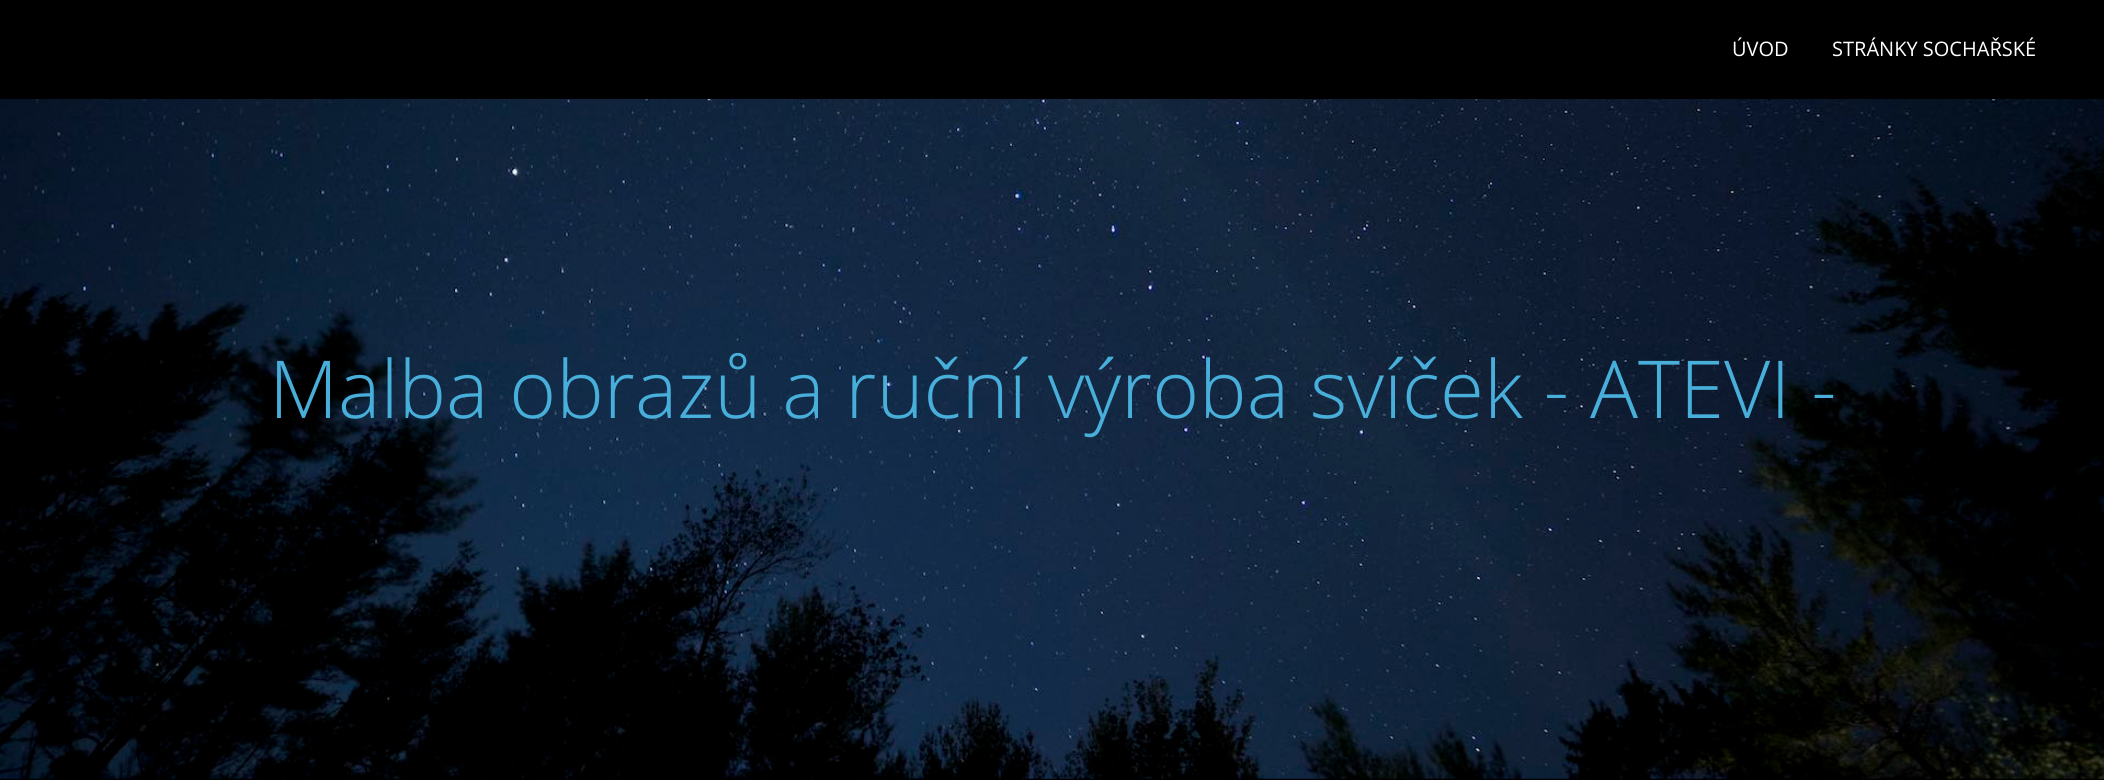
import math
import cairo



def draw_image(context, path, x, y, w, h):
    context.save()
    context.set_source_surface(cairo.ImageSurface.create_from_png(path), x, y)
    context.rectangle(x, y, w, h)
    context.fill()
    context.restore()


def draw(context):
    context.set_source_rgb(0, 0, 0)
    context.paint()
    draw_image(context, "images/1.png", 0, 99, 2104, 680)
    context.select_font_face("Open Sans")
    context.set_font_size(20)
    context.set_source_rgb(1, 1, 1)
    context.move_to(1732, 56)
    context.show_text("ÚVOD")
    context.move_to(1832, 56)
    context.show_text("STRÁNKY SOCHAŘSKÉ")
    context.select_font_face("Open Sans Light")
    context.set_font_size(80)
    context.set_source_rgb(72 / 255, 175 / 255, 219 / 255)
    context.move_to(269, 418)
    context.show_text("Malba obrazů a ruční výroba svíček - ATEVI -")


surface = cairo.ImageSurface(cairo.Format.RGB24, 2104, 780)
context = cairo.Context(surface)
options = cairo.FontOptions()
options.set_hint_metrics(cairo.HintMetrics.OFF)
options.set_hint_style(cairo.HintStyle.NONE)
context.set_font_options(options)
context.set_miter_limit(4)
draw(context)
surface.write_to_png("out.png")
